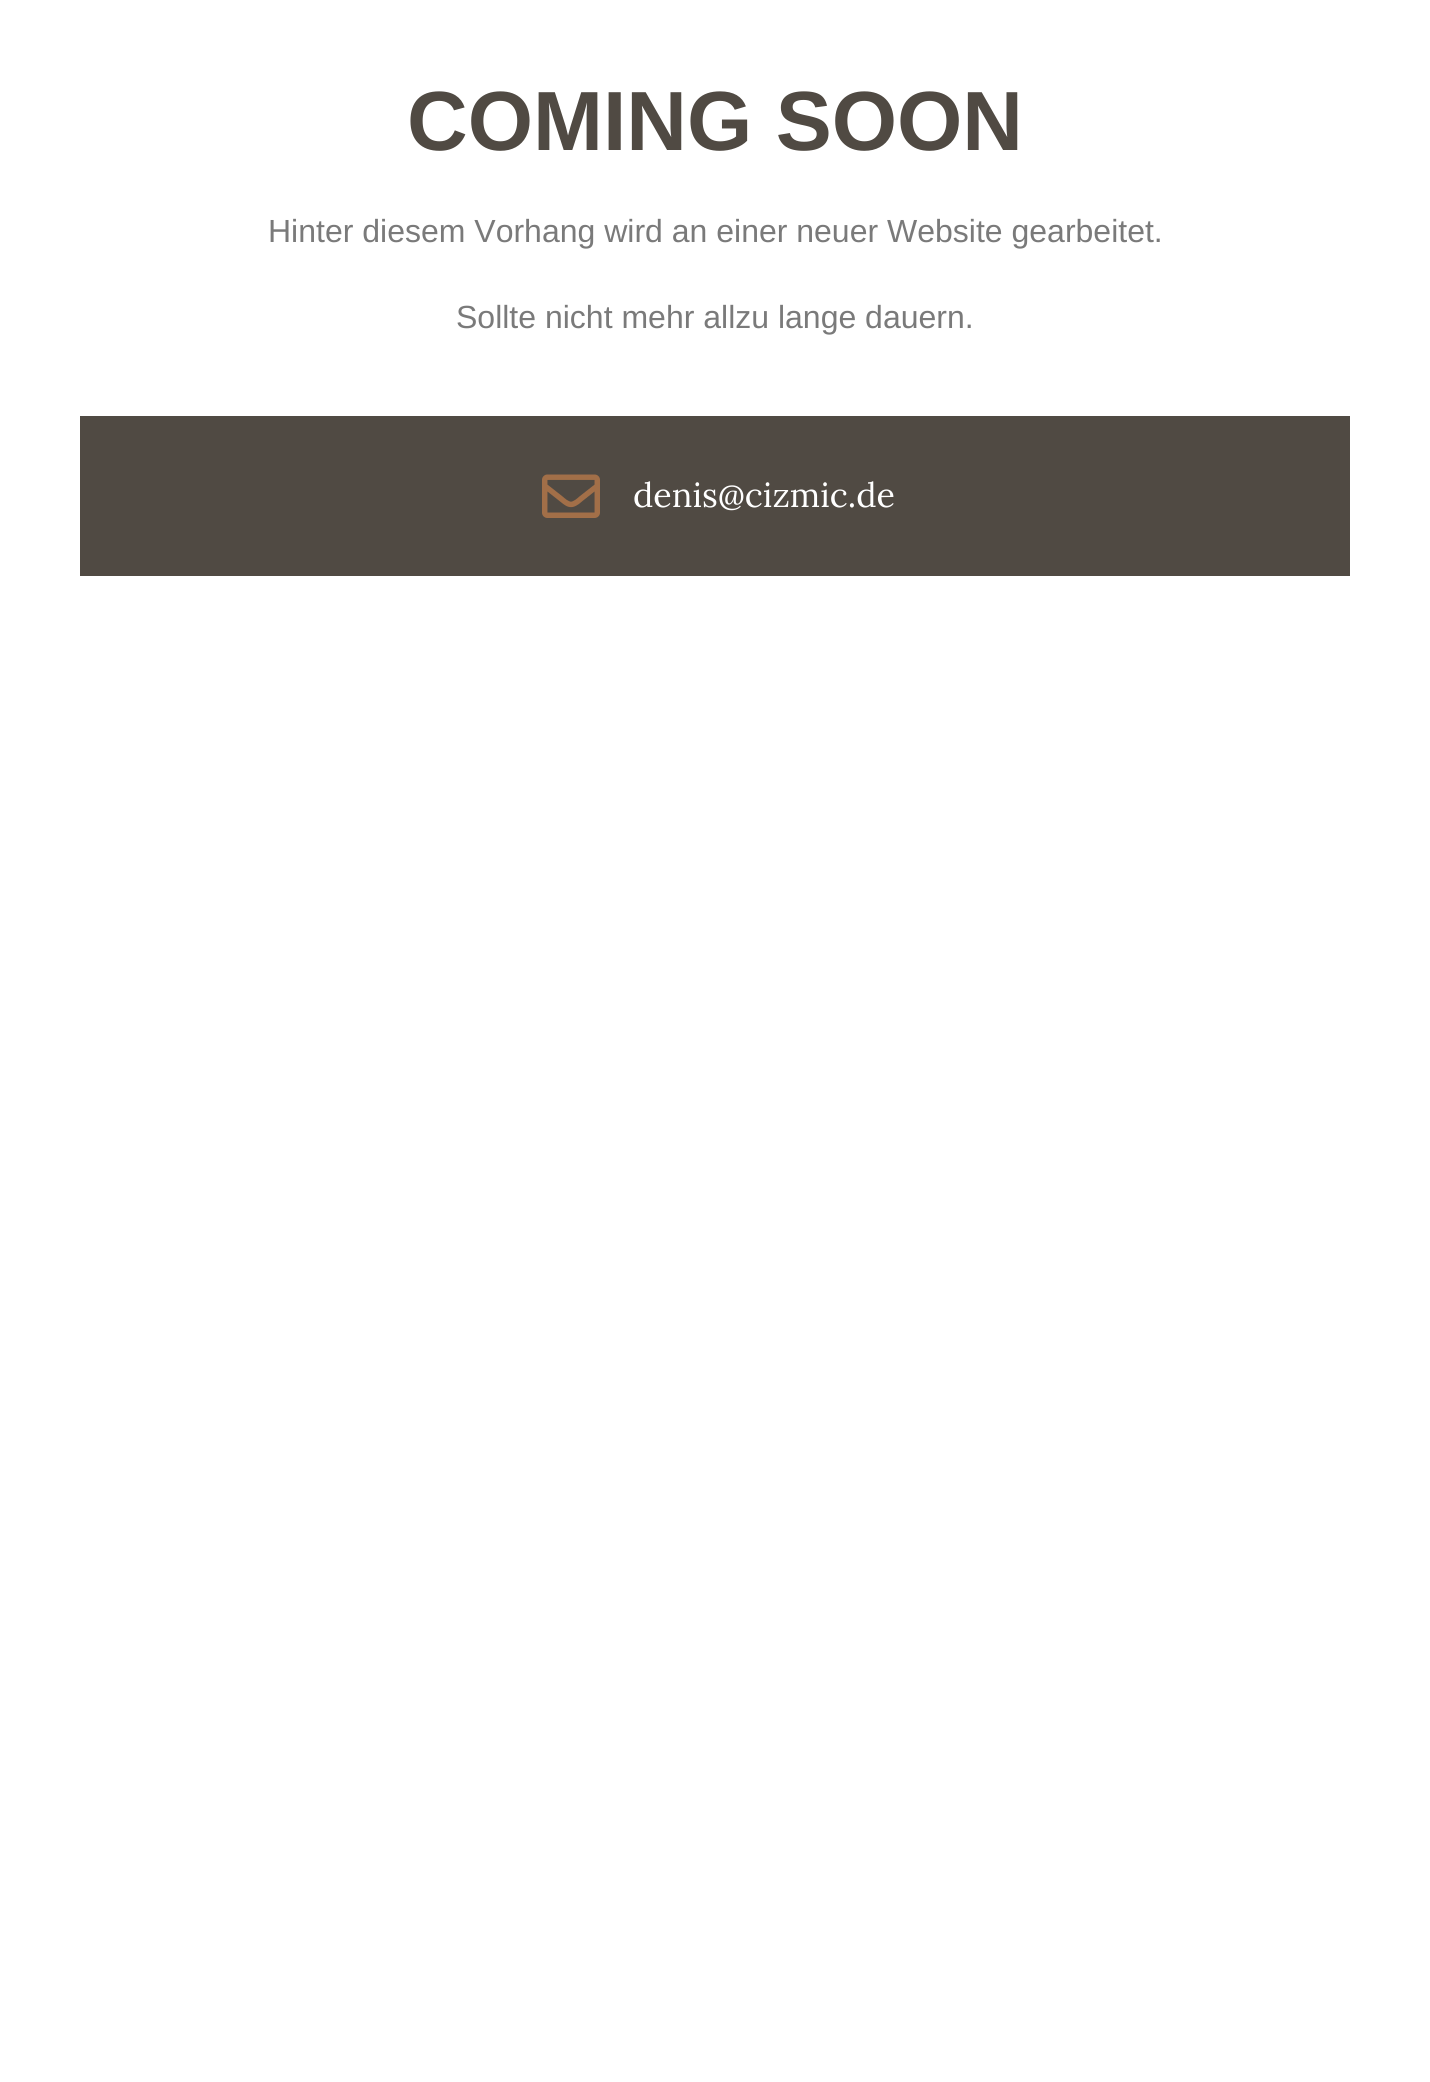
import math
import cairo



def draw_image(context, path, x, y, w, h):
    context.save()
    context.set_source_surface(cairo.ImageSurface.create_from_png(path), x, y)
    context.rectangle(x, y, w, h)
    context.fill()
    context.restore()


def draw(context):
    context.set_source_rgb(1, 1, 1)
    context.paint()
    context.set_source_rgb(80 / 255, 74 / 255, 67 / 255)
    context.rectangle(80, 416, 1270, 160)
    context.fill()
    draw_image(context, "images/1.png", 542, 474, 58, 44)
    context.select_font_face("Liberation Sans", cairo.FontSlant.NORMAL, cairo.FontWeight.BOLD)
    context.set_font_size(84)
    context.move_to(407, 150)
    context.show_text("COMING SOON")
    context.select_font_face("Liberation Sans")
    context.set_font_size(32)
    context.set_source_rgb(122 / 255, 122 / 255, 122 / 255)
    context.move_to(268, 242)
    context.show_text("Hinter diesem Vorhang wird an einer neuer Website gearbeitet.")
    context.move_to(456, 328)
    context.show_text("Sollte nicht mehr allzu lange dauern.")
    context.select_font_face("Lora")
    context.set_font_size(34)
    context.set_source_rgb(1, 1, 1)
    context.move_to(633, 507)
    context.show_text("denis@cizmic.de")


surface = cairo.ImageSurface(cairo.Format.RGB24, 1430, 2082)
context = cairo.Context(surface)
options = cairo.FontOptions()
options.set_hint_metrics(cairo.HintMetrics.OFF)
options.set_hint_style(cairo.HintStyle.NONE)
context.set_font_options(options)
context.set_miter_limit(4)
draw(context)
surface.write_to_png("out.png")
